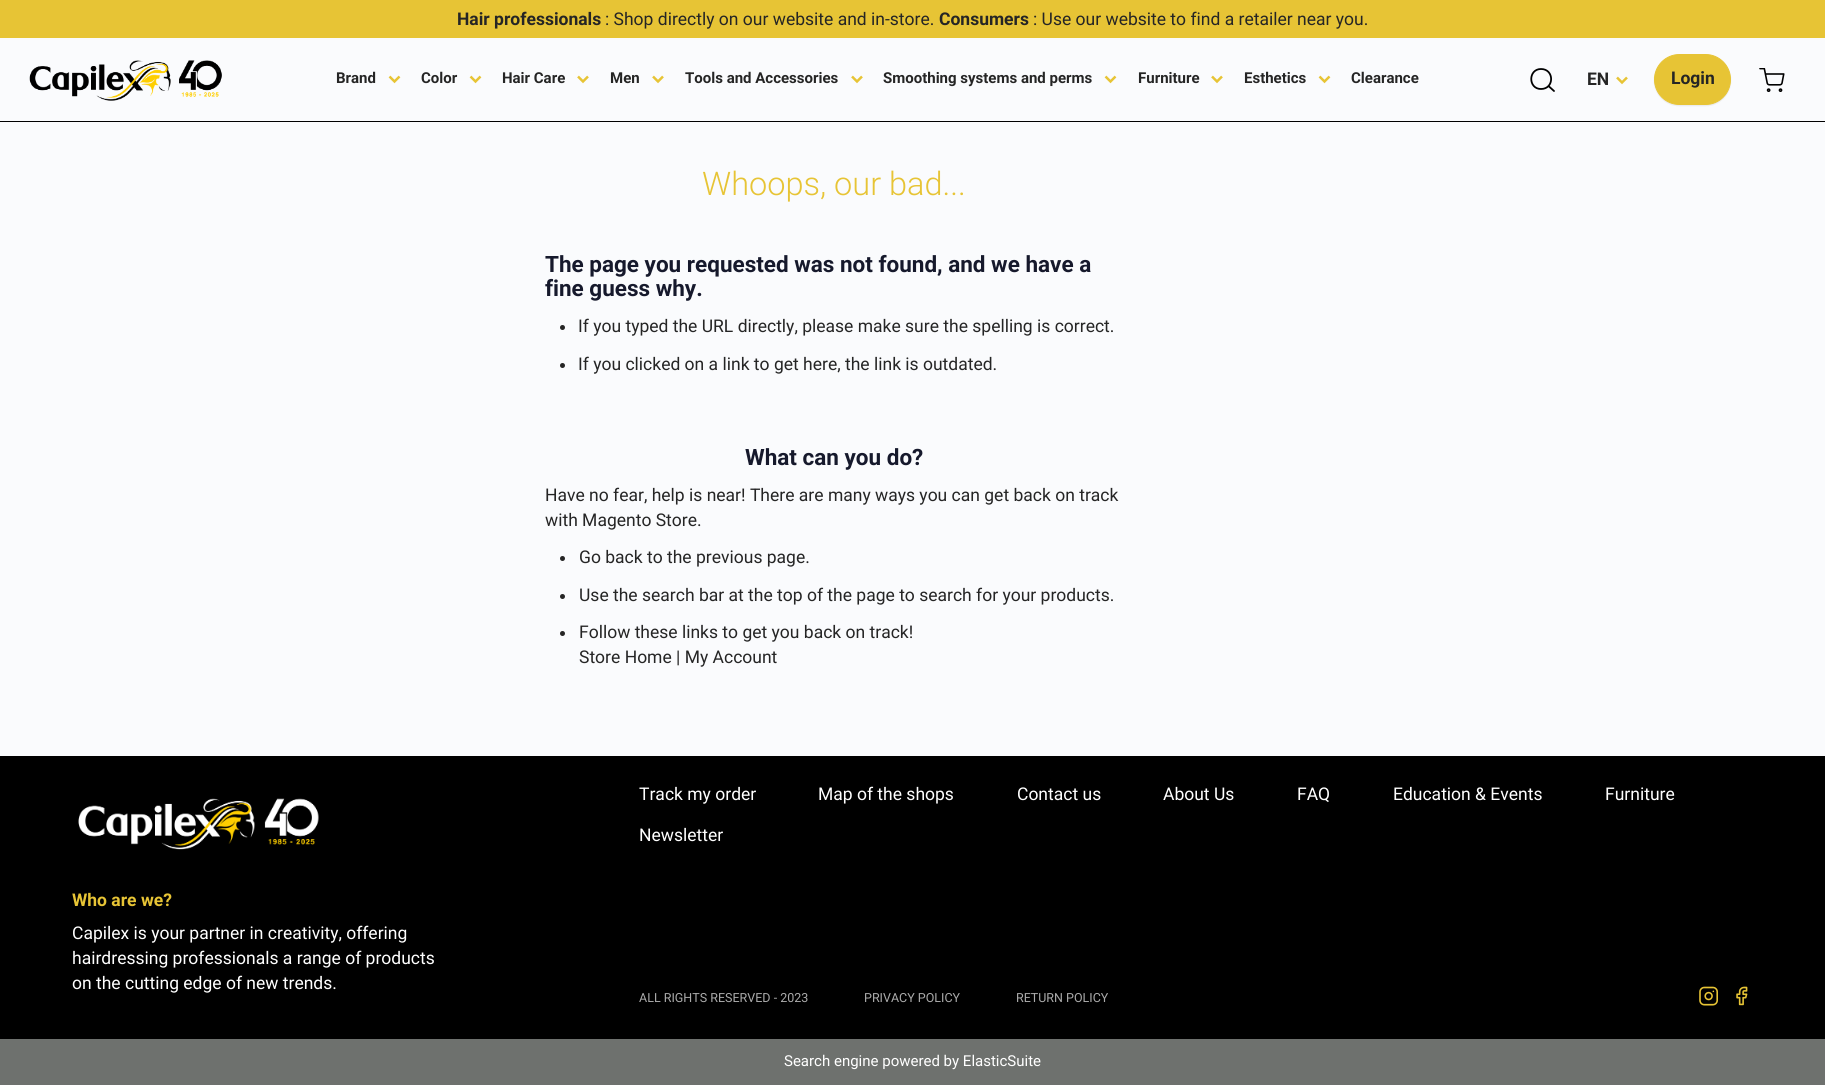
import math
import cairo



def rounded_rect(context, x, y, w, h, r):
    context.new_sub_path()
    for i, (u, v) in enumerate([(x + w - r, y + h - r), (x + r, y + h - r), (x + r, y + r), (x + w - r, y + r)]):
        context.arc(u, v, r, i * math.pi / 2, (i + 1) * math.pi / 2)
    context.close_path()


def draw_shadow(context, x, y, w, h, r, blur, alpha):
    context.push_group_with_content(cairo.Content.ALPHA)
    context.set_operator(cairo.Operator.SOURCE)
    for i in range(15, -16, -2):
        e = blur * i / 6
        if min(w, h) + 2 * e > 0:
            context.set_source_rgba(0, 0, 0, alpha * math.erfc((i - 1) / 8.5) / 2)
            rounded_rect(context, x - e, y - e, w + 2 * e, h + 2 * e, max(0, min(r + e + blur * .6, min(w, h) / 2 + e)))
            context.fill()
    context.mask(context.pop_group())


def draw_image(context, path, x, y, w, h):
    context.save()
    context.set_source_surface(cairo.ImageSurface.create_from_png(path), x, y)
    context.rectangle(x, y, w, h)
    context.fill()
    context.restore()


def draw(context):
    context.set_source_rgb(250 / 255, 251 / 255, 253 / 255)
    context.paint()
    context.set_source_rgb(0, 0, 0)
    context.rectangle(0, 121, 1825, 1)
    context.fill()
    context.set_source_rgb(231 / 255, 196 / 255, 53 / 255)
    context.rectangle(0, 0, 1825, 38)
    context.fill()
    draw_image(context, "images/1.png", 29, 60, 193, 41)
    context.new_path()
    context.move_to(389.5, 76.5)
    context.line_to(394.5, 81.5)
    context.line_to(399.5, 76.5)
    context.set_line_width(2.5)
    context.stroke()
    context.new_path()
    context.move_to(470.5, 76.5)
    context.line_to(475.5, 81.5)
    context.line_to(480.5, 76.5)
    context.stroke()
    context.new_path()
    context.move_to(578, 76.5)
    context.line_to(583, 81.5)
    context.line_to(588, 76.5)
    context.stroke()
    context.new_path()
    context.move_to(653, 76.5)
    context.line_to(658, 81.5)
    context.line_to(663, 76.5)
    context.stroke()
    context.new_path()
    context.move_to(852, 76.5)
    context.line_to(857, 81.5)
    context.line_to(862, 76.5)
    context.stroke()
    context.new_path()
    context.move_to(1105.5, 76.5)
    context.line_to(1110.5, 81.5)
    context.line_to(1115.5, 76.5)
    context.stroke()
    context.new_path()
    context.move_to(1212, 76.5)
    context.line_to(1217, 81.5)
    context.line_to(1222, 76.5)
    context.stroke()
    context.new_path()
    context.move_to(1319.5, 76.5)
    context.line_to(1324.5, 81.5)
    context.line_to(1329.5, 76.5)
    context.stroke()
    context.new_path()
    context.move_to(1541, 89)
    context.curve_to(1554.5, 89, 1554.5, 69, 1541, 69)
    context.curve_to(1528, 69, 1528, 89, 1541, 89)
    context.close_path()
    context.move_to(1554, 91)
    context.line_to(1548.5, 86)
    context.set_source_rgb(0, 0, 0)
    context.set_line_width(1.8)
    context.set_line_cap(cairo.LineCap.ROUND)
    context.set_line_join(cairo.LineJoin.ROUND)
    context.stroke()
    context.new_path()
    context.move_to(1617, 77.5)
    context.line_to(1622, 82.5)
    context.line_to(1627, 77.5)
    context.set_source_rgb(231 / 255, 196 / 255, 53 / 255)
    context.set_line_width(2.5)
    context.set_line_cap(cairo.LineCap.BUTT)
    context.set_line_join(cairo.LineJoin.MITER)
    context.stroke()
    context.set_source_rgb(0, 0, 0)
    draw_shadow(context, 1654, 55, 77, 51, 25.5, 0.5, 0.07)
    context.set_source_rgb(231 / 255, 196 / 255, 53 / 255)
    rounded_rect(context, 1654.5, 54.5, 76, 50, 25)
    context.fill_preserve()
    context.set_line_width(1)
    context.stroke()
    draw_image(context, "images/2.png", 1759, 68, 26, 24)
    context.set_source_rgb(37 / 255, 37 / 255, 37 / 255)
    context.arc(562.5, 327.5, 2.5, 0, 2 * math.pi)
    context.fill()
    context.arc(562.5, 365.5, 2.5, 0, 2 * math.pi)
    context.fill()
    context.arc(562.5, 558.5, 2.5, 0, 2 * math.pi)
    context.fill()
    context.arc(562.5, 596.5, 2.5, 0, 2 * math.pi)
    context.fill()
    context.arc(562.5, 633.5, 2.5, 0, 2 * math.pi)
    context.fill()
    context.set_source_rgb(0, 0, 0)
    context.rectangle(0, 756, 1825, 283)
    context.fill()
    draw_image(context, "images/3.png", 78, 798, 241, 52)
    draw_image(context, "images/4.png", 1699, 986, 19, 20)
    draw_image(context, "images/5.png", 1736, 986, 12, 20)
    context.set_source_rgb(110 / 255, 113 / 255, 110 / 255)
    context.rectangle(0, 1039, 1825, 46)
    context.fill()
    context.select_font_face("Roboto", cairo.FontSlant.NORMAL, cairo.FontWeight.BOLD)
    context.set_font_size(17.5)
    context.set_source_rgb(37 / 255, 37 / 255, 37 / 255)
    context.move_to(457, 25)
    context.show_text("Hair professionals")
    context.select_font_face("Roboto")
    context.move_to(605, 25)
    context.show_text(": Shop directly on our website and in-store.")
    context.select_font_face("Roboto", cairo.FontSlant.NORMAL, cairo.FontWeight.BOLD)
    context.move_to(939, 25)
    context.show_text("Consumers")
    context.select_font_face("Roboto")
    context.move_to(1033, 25)
    context.show_text(": Use our website to find a retailer near you.")
    context.select_font_face("Roboto", cairo.FontSlant.NORMAL, cairo.FontWeight.BOLD)
    context.set_font_size(15)
    context.move_to(336, 83)
    context.show_text("Brand")
    context.move_to(421, 83)
    context.show_text("Color")
    context.move_to(502, 83)
    context.show_text("Hair Care")
    context.move_to(610, 83)
    context.show_text("Men")
    context.move_to(685, 83)
    context.show_text("Tools and Accessories")
    context.move_to(883, 83)
    context.show_text("Smoothing systems and perms")
    context.move_to(1138, 83)
    context.show_text("Furniture")
    context.move_to(1244, 83)
    context.show_text("Esthetics")
    context.move_to(1351, 83)
    context.show_text("Clearance")
    context.set_font_size(17.5)
    context.move_to(1587, 85)
    context.show_text("EN")
    context.move_to(1671, 84)
    context.show_text("Login")
    context.select_font_face("Roboto Light")
    context.set_font_size(32.5)
    context.set_source_rgb(231 / 255, 196 / 255, 53 / 255)
    context.move_to(702, 195)
    context.show_text("Whoops, our bad...")
    context.select_font_face("Roboto", cairo.FontSlant.NORMAL, cairo.FontWeight.BOLD)
    context.set_font_size(22.5)
    context.set_source_rgb(22 / 255, 25 / 255, 44 / 255)
    context.move_to(545, 272)
    context.show_text("The page you requested was not found, and we have a")
    context.move_to(545, 296)
    context.show_text("fine guess why.")
    context.select_font_face("Roboto")
    context.set_font_size(17.5)
    context.set_source_rgb(37 / 255, 37 / 255, 37 / 255)
    context.move_to(578, 332)
    context.show_text("If you typed the URL directly, please make sure the spelling is correct.")
    context.move_to(578, 370)
    context.show_text("If you clicked on a link to get here, the link is outdated.")
    context.select_font_face("Roboto", cairo.FontSlant.NORMAL, cairo.FontWeight.BOLD)
    context.set_font_size(22.5)
    context.set_source_rgb(22 / 255, 25 / 255, 44 / 255)
    context.move_to(745, 465)
    context.show_text("What can you do?")
    context.select_font_face("Roboto")
    context.set_font_size(17.5)
    context.set_source_rgb(37 / 255, 37 / 255, 37 / 255)
    context.move_to(545, 501)
    context.show_text("Have no fear, help is near! There are many ways you can get back on track")
    context.move_to(545, 526)
    context.show_text("with Magento Store.")
    context.move_to(579, 563)
    context.show_text("Go back to the previous page.")
    context.move_to(579, 601)
    context.show_text("Use the search bar at the top of the page to search for your products.")
    context.move_to(579, 638)
    context.show_text("Follow these links to get you back on track!")
    context.move_to(579, 663)
    context.show_text("Store Home | My Account")
    context.set_source_rgb(1, 1, 1)
    context.move_to(639, 800)
    context.show_text("Track my order")
    context.move_to(818, 800)
    context.show_text("Map of the shops")
    context.move_to(1017, 800)
    context.show_text("Contact us")
    context.move_to(1163, 800)
    context.show_text("About Us")
    context.move_to(1297, 800)
    context.show_text("FAQ")
    context.move_to(1393, 800)
    context.show_text("Education & Events")
    context.move_to(1605, 800)
    context.show_text("Furniture")
    context.move_to(639, 841)
    context.show_text("Newsletter")
    context.select_font_face("Roboto", cairo.FontSlant.NORMAL, cairo.FontWeight.BOLD)
    context.set_source_rgb(231 / 255, 196 / 255, 53 / 255)
    context.move_to(72, 906)
    context.show_text("Who are we?")
    context.select_font_face("Roboto")
    context.set_source_rgb(1, 1, 1)
    context.move_to(72, 939)
    context.show_text("Capilex is your partner in creativity, offering")
    context.move_to(72, 964)
    context.show_text("hairdressing professionals a range of products")
    context.move_to(72, 989)
    context.show_text("on the cutting edge of new trends.")
    context.set_font_size(12.5)
    context.set_source_rgb(171 / 255, 171 / 255, 171 / 255)
    context.move_to(639, 1002)
    context.show_text("ALL RIGHTS RESERVED - 2023")
    context.move_to(864, 1002)
    context.show_text("PRIVACY POLICY")
    context.move_to(1016, 1002)
    context.show_text("RETURN POLICY")
    context.set_font_size(15)
    context.set_source_rgb(1, 1, 1)
    context.move_to(784, 1066)
    context.show_text("Search engine powered by ElasticSuite")


surface = cairo.ImageSurface(cairo.Format.RGB24, 1825, 1085)
context = cairo.Context(surface)
options = cairo.FontOptions()
options.set_hint_metrics(cairo.HintMetrics.OFF)
options.set_hint_style(cairo.HintStyle.NONE)
context.set_font_options(options)
context.set_miter_limit(4)
draw(context)
surface.write_to_png("out.png")
